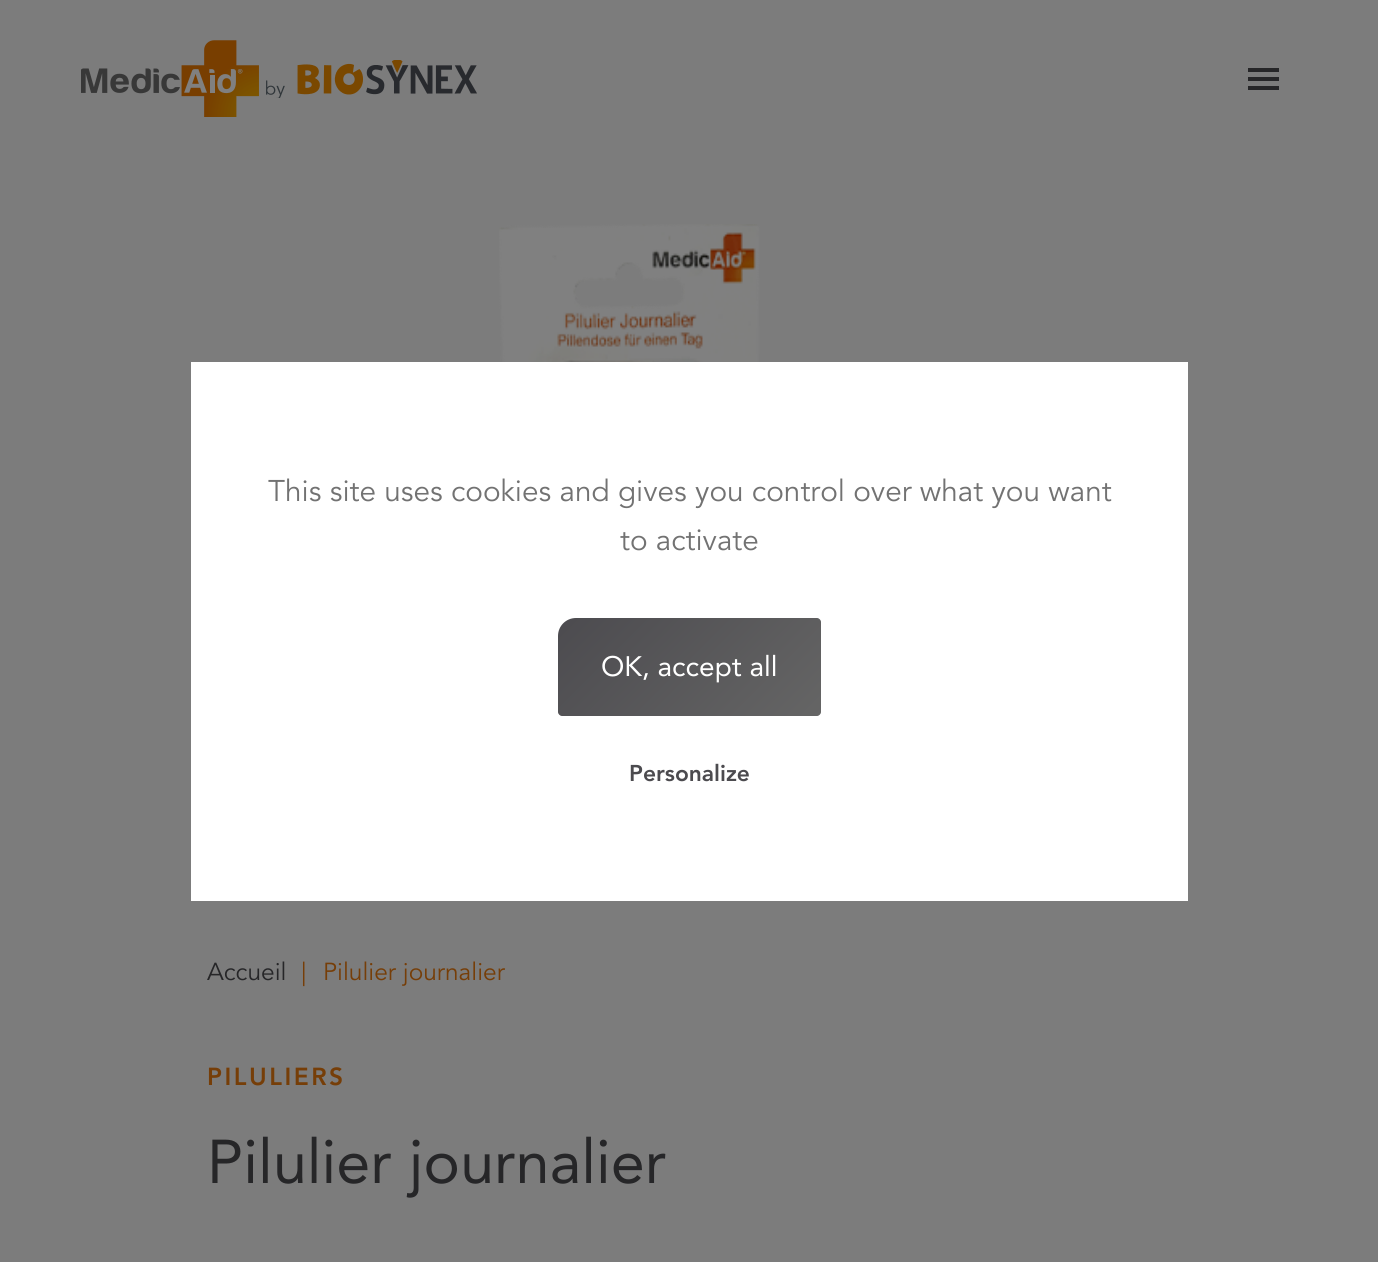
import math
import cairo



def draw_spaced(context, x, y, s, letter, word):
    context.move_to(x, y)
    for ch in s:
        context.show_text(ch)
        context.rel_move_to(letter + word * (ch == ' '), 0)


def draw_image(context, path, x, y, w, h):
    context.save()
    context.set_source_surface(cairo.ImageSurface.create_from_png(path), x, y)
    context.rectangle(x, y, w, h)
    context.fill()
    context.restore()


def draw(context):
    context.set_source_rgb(124 / 255, 124 / 255, 124 / 255)
    context.paint()
    draw_image(context, "images/1.png", 81, 40, 178, 77)
    draw_image(context, "images/2.png", 266, 60, 211, 38)
    context.set_source_rgb(38 / 255, 38 / 255, 40 / 255)
    context.rectangle(1248, 68, 31, 4)
    context.fill()
    context.rectangle(1248, 77, 31, 4)
    context.fill()
    context.rectangle(1248, 86, 31, 4)
    context.fill()
    context.set_source_rgb(1, 1, 1)
    context.rectangle(191, 362, 997, 539)
    context.fill()
    gradient = cairo.LinearGradient(599, 577, 780, 757)
    gradient.add_color_stop_rgba(0, 76 / 255, 75 / 255, 79 / 255, 1)
    gradient.add_color_stop_rgba(1, 101 / 255, 101 / 255, 101 / 255, 1)
    context.set_source(gradient)
    context.new_path()
    context.move_to(576, 618)
    context.line_to(817, 618)
    context.curve_to(819, 618, 821, 620, 821, 622)
    context.line_to(821, 712)
    context.curve_to(821, 714, 819, 716, 817, 716)
    context.line_to(562, 716)
    context.curve_to(560, 716, 558, 714, 558, 712)
    context.line_to(558, 636)
    context.curve_to(558, 626, 566, 618, 576, 618)
    context.close_path()
    context.fill()
    draw_image(context, "images/3.png", 499, 224, 261, 138)
    context.select_font_face("Avenir")
    context.set_font_size(29.75)
    context.set_source_rgb(114 / 255, 114 / 255, 114 / 255)
    context.move_to(268, 501)
    context.show_text("This site uses cookies and gives you control over what you want")
    context.move_to(620, 550)
    context.show_text("to activate")
    context.select_font_face("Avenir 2")
    context.set_font_size(28)
    context.set_source_rgb(1, 1, 1)
    context.move_to(601, 676)
    context.show_text("OK, accept all")
    context.select_font_face("Avenir Black")
    context.set_font_size(22.75)
    context.set_source_rgb(76 / 255, 75 / 255, 79 / 255)
    context.move_to(629, 781)
    context.show_text("Personalize")
    context.select_font_face("Avenir")
    context.set_font_size(24.5)
    context.set_source_rgb(38 / 255, 38 / 255, 40 / 255)
    context.move_to(207, 980)
    context.show_text("Accueil")
    context.set_source_rgb(118 / 255, 62 / 255, 8 / 255)
    context.move_to(301, 980)
    context.show_text("|")
    context.move_to(323, 980)
    context.show_text("Pilulier journalier")
    context.select_font_face("Avenir Black")
    draw_spaced(context, 207, 1085, "PILULIERS", 2.5, 0)
    context.select_font_face("Avenir 2")
    context.set_font_size(61.25)
    context.set_source_rgb(38 / 255, 38 / 255, 40 / 255)
    context.move_to(207, 1183)
    context.show_text("Pilulier journalier")


surface = cairo.ImageSurface(cairo.Format.RGB24, 1378, 1262)
context = cairo.Context(surface)
options = cairo.FontOptions()
options.set_hint_metrics(cairo.HintMetrics.OFF)
options.set_hint_style(cairo.HintStyle.NONE)
context.set_font_options(options)
context.set_miter_limit(4)
draw(context)
surface.write_to_png("out.png")
